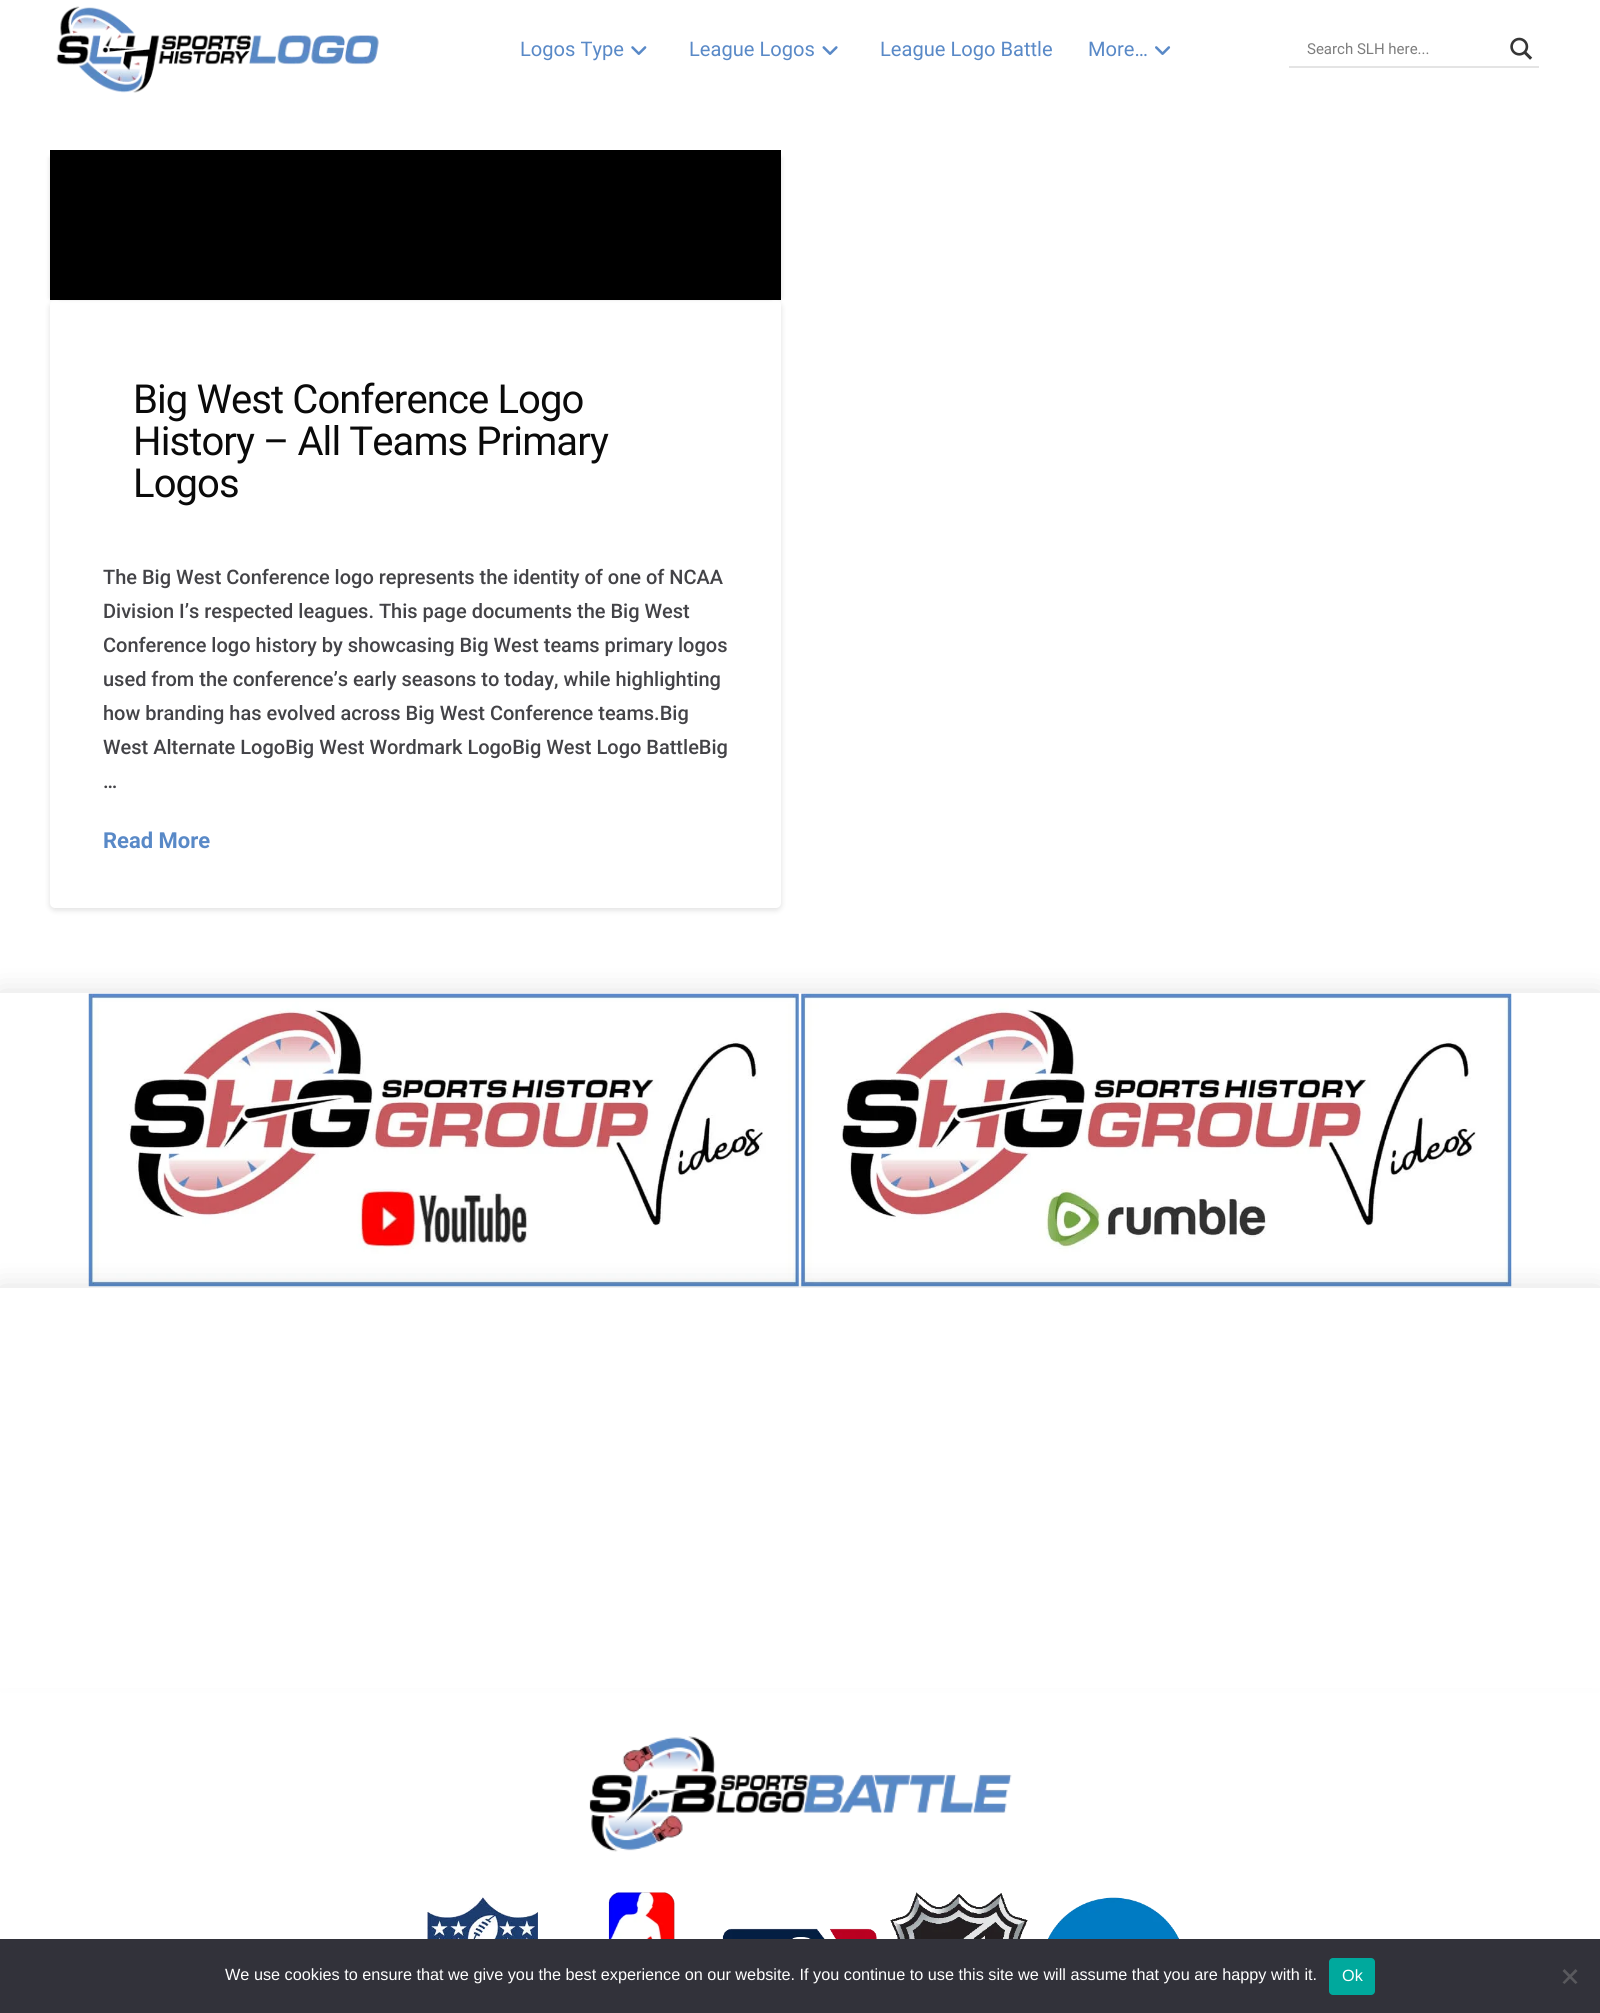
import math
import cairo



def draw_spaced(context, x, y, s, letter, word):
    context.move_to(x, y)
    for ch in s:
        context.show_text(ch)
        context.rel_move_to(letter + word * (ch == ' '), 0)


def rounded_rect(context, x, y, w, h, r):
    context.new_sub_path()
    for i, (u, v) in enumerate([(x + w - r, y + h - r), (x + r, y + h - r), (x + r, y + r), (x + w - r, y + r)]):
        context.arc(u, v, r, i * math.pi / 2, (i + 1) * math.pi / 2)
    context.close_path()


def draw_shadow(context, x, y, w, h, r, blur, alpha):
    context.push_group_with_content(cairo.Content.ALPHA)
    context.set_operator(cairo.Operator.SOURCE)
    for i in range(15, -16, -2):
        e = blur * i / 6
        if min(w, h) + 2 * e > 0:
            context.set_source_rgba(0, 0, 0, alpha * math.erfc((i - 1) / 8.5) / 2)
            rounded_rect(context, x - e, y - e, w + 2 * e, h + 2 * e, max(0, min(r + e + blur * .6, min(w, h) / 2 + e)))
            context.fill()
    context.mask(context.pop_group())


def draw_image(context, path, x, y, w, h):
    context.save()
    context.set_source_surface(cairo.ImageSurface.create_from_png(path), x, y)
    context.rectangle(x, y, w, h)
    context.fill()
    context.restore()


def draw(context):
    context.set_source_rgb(1, 1, 1)
    context.paint()
    draw_image(context, "images/1.png", 56, 6, 323, 87)
    draw_image(context, "images/2.png", 631, 46, 16, 9)
    draw_image(context, "images/3.png", 822, 46, 16, 9)
    draw_image(context, "images/4.png", 1155, 46, 16, 9)
    context.set_source_rgb(228 / 255, 228 / 255, 228 / 255)
    context.new_path()
    context.move_to(1289, 66)
    context.line_to(1289, 68)
    context.line_to(1539, 68)
    context.line_to(1539, 33)
    context.line_to(1539, 66)
    context.close_path()
    context.fill()
    draw_image(context, "images/5.png", 1510, 37, 23, 23)
    context.set_source_rgb(0, 0, 0)
    draw_shadow(context, 50, 303, 731, 607, 5, 3, 0.13)
    context.set_source_rgb(1, 1, 1)
    rounded_rect(context, 50, 300, 731, 608, 5)
    context.fill()
    context.set_source_rgb(0, 0, 0)
    draw_shadow(context, 50, 158, 721, 140, 0, 2.5, 0.13)
    draw_shadow(context, 60, 158, 721, 140, 0, 2.5, 0.13)
    context.set_source_rgb(0, 0, 0)
    context.rectangle(50, 150, 731, 150)
    context.fill()
    context.set_source_rgb(0, 0, 0)
    draw_shadow(context, 0, 996, 1600, 295, 0, 15.5, 0.15)
    context.set_source_rgb(1, 1, 1)
    context.rectangle(0, 993, 1600, 295)
    context.fill()
    draw_image(context, "images/6.png", 88, 993, 711, 294)
    draw_image(context, "images/7.png", 801, 993, 711, 294)
    context.set_source_rgb(0, 0, 0)
    draw_shadow(context, 0, 1291, 1600, 374, 0, 15.5, 0.15)
    context.set_source_rgb(1, 1, 1)
    context.rectangle(0, 1288, 1600, 400)
    context.fill()
    draw_image(context, "images/8.png", 589, 1736, 423, 116)
    draw_image(context, "images/9.png", 427, 1897, 111, 42)
    draw_image(context, "images/10.png", 608, 1892, 67, 47)
    draw_image(context, "images/11.png", 722, 1928, 155, 11)
    draw_image(context, "images/12.png", 890, 1892, 138, 47)
    draw_image(context, "images/13.png", 1048, 1897, 132, 42)
    context.set_source_rgb(50 / 255, 50 / 255, 58 / 255)
    context.rectangle(0, 1939, 1600, 74)
    context.fill()
    context.set_source_rgb(0, 169 / 255, 157 / 255)
    rounded_rect(context, 1329, 1958, 46, 37, 4)
    context.fill()
    context.set_source_rgb(89 / 255, 89 / 255, 93 / 255)
    context.new_path()
    context.move_to(1575.5, 1969)
    context.line_to(1577.5, 1971)
    context.line_to(1564.5, 1984)
    context.line_to(1562.5, 1982.5)
    context.close_path()
    context.fill()
    context.new_path()
    context.move_to(1562.5, 1971)
    context.line_to(1564.5, 1969)
    context.line_to(1577.5, 1982.5)
    context.line_to(1575.5, 1984)
    context.close_path()
    context.fill()
    context.select_font_face("Roboto")
    context.set_font_size(20.1)
    context.set_source_rgb(89 / 255, 137 / 255, 199 / 255)
    context.move_to(520, 56)
    context.show_text("Logos Type")
    context.move_to(689, 56)
    context.show_text("League Logos")
    context.move_to(880, 56)
    context.show_text("League Logo Battle")
    context.move_to(1088, 56)
    context.show_text("More…")
    context.set_font_size(15)
    context.set_source_rgb(125 / 255, 125 / 255, 125 / 255)
    context.move_to(1307, 54)
    context.show_text("Search SLH here...")
    context.set_font_size(40)
    context.set_source_rgb(10 / 255, 10 / 255, 10 / 255)
    draw_spaced(context, 133, 413, "Big West Conference Logo", -0.9, 0)
    draw_spaced(context, 133, 455, "History – All Teams Primary", -0.9, 0)
    draw_spaced(context, 133, 497, "Logos", -0.9, 0)
    context.select_font_face("Roboto Medium")
    context.set_font_size(20)
    context.set_source_rgb(67 / 255, 67 / 255, 71 / 255)
    context.move_to(103, 584)
    context.show_text("The Big West Conference logo represents the identity of one of NCAA")
    context.move_to(103, 618)
    context.show_text("Division I’s respected leagues. This page documents the Big West")
    context.move_to(103, 652)
    context.show_text("Conference logo history by showcasing Big West teams primary logos")
    context.move_to(103, 686)
    context.show_text("used from the conference’s early seasons to today, while highlighting")
    context.move_to(103, 720)
    context.show_text("how branding has evolved across Big West Conference teams.Big")
    context.move_to(103, 754)
    context.show_text("West Alternate LogoBig West Wordmark LogoBig West Logo BattleBig")
    context.move_to(103, 788)
    context.show_text("…")
    context.select_font_face("Roboto", cairo.FontSlant.NORMAL, cairo.FontWeight.BOLD)
    context.set_font_size(22)
    context.set_source_rgb(89 / 255, 137 / 255, 199 / 255)
    context.move_to(103, 848)
    context.show_text("Read More")
    context.select_font_face("Liberation Sans")
    context.set_font_size(16.25)
    context.set_source_rgb(1, 1, 1)
    context.move_to(225, 1980)
    context.show_text("We use cookies to ensure that we give you the best experience on our website. If you continue to use this site we will assume that you are happy with it.")
    context.move_to(1342, 1981)
    context.show_text("Ok")


surface = cairo.ImageSurface(cairo.Format.RGB24, 1600, 2013)
context = cairo.Context(surface)
options = cairo.FontOptions()
options.set_hint_metrics(cairo.HintMetrics.OFF)
options.set_hint_style(cairo.HintStyle.NONE)
context.set_font_options(options)
context.set_miter_limit(4)
draw(context)
surface.write_to_png("out.png")
